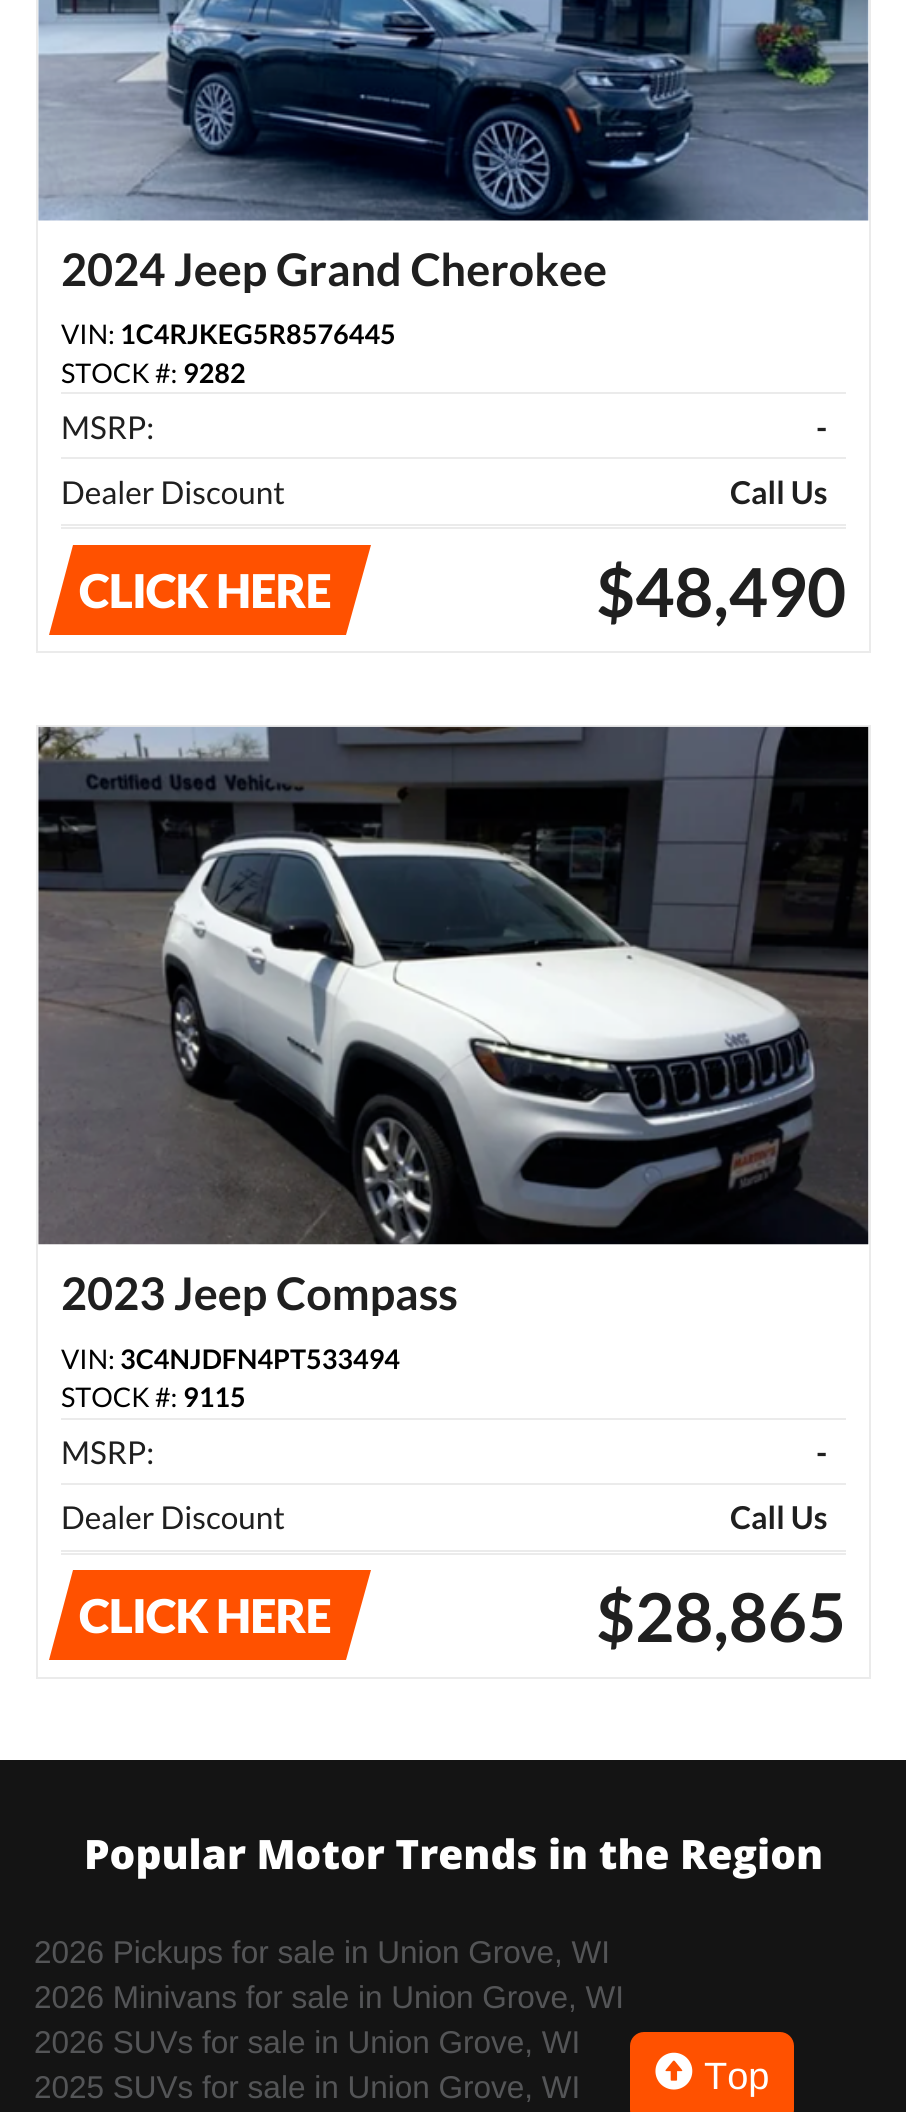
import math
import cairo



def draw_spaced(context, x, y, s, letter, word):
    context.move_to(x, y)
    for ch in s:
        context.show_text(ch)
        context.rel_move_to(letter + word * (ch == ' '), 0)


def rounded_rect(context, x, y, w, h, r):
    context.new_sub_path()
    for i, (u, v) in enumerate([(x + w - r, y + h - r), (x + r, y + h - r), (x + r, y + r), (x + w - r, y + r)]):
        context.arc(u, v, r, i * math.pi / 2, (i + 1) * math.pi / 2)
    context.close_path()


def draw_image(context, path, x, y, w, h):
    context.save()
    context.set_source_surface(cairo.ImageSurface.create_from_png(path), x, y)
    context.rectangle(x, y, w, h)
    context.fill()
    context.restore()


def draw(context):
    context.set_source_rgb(1, 1, 1)
    context.paint()
    context.rectangle(37, -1, 833, 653)
    context.set_source_rgb(235 / 255, 235 / 255, 235 / 255)
    context.stroke()
    draw_image(context, "images/1.png", 38, 0, 831, 221)
    context.rectangle(61, 392, 785, 2)
    context.fill()
    context.rectangle(61, 457, 785, 2)
    context.fill()
    context.rectangle(61, 524, 785, 2)
    context.fill()
    context.rectangle(61, 527, 785, 2)
    context.fill()
    context.set_source_rgb(1, 81 / 255, 0)
    context.new_path()
    context.move_to(73, 545)
    context.line_to(371, 545)
    context.line_to(346, 635)
    context.line_to(49, 635)
    context.close_path()
    context.fill()
    context.rectangle(37, 726, 833, 952)
    context.set_source_rgb(235 / 255, 235 / 255, 235 / 255)
    context.stroke()
    draw_image(context, "images/2.png", 38, 726, 831, 519)
    context.rectangle(61, 1418, 785, 2)
    context.fill()
    context.rectangle(61, 1483, 785, 2)
    context.fill()
    context.rectangle(61, 1550, 785, 2)
    context.fill()
    context.rectangle(61, 1553, 785, 2)
    context.fill()
    context.set_source_rgb(1, 81 / 255, 0)
    context.new_path()
    context.move_to(73, 1570)
    context.line_to(371, 1570)
    context.line_to(346, 1660)
    context.line_to(49, 1660)
    context.close_path()
    context.fill()
    context.set_source_rgb(20 / 255, 20 / 255, 20 / 255)
    context.rectangle(0, 1760, 906, 352)
    context.fill()
    context.set_source_rgb(1, 81 / 255, 0)
    rounded_rect(context, 631, 2033, 162, 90, 13)
    context.fill_preserve()
    context.stroke()
    draw_image(context, "images/3.png", 655, 2052, 38, 38)
    context.save()
    context.rectangle(61, 243, 547, 50)
    context.clip()
    context.select_font_face("Lato", cairo.FontSlant.NORMAL, cairo.FontWeight.BOLD)
    context.set_font_size(45)
    context.set_source_rgb(31 / 255, 31 / 255, 31 / 255)
    context.move_to(61, 286)
    context.show_text("2024 Jeep Grand Cherokee")
    context.restore()
    context.select_font_face("Lato")
    context.set_font_size(27)
    context.set_source_rgb(0, 0, 0)
    context.move_to(61, 344)
    context.show_text("VIN:")
    context.select_font_face("Lato", cairo.FontSlant.NORMAL, cairo.FontWeight.BOLD)
    context.move_to(120, 344)
    context.show_text("1C4RJKEG5R8576445")
    context.select_font_face("Lato")
    context.move_to(61, 383)
    context.show_text("STOCK #:")
    context.select_font_face("Lato", cairo.FontSlant.NORMAL, cairo.FontWeight.BOLD)
    context.move_to(183, 383)
    context.show_text("9282")
    context.select_font_face("Lato")
    context.set_font_size(31.5)
    context.set_source_rgb(31 / 255, 31 / 255, 31 / 255)
    context.move_to(61, 439)
    context.show_text("MSRP:")
    context.select_font_face("Lato", cairo.FontSlant.NORMAL, cairo.FontWeight.BOLD)
    context.move_to(816, 439)
    context.show_text("-")
    context.select_font_face("Lato")
    context.move_to(61, 504)
    context.show_text("Dealer Discount")
    context.select_font_face("Lato", cairo.FontSlant.NORMAL, cairo.FontWeight.BOLD)
    context.move_to(730, 504)
    context.show_text("Call Us")
    context.select_font_face("Lato Black")
    context.set_font_size(46.5)
    context.set_source_rgb(1, 1, 1)
    draw_spaced(context, 79, 608, "CLICK HERE", -0.9, 0)
    context.select_font_face("Lato", cairo.FontSlant.NORMAL, cairo.FontWeight.BOLD)
    context.set_font_size(67.5)
    context.set_source_rgb(31 / 255, 31 / 255, 31 / 255)
    context.move_to(596, 617)
    context.show_text("$48,490")
    context.save()
    context.rectangle(61, 1267, 398, 49)
    context.clip()
    context.set_font_size(45)
    context.move_to(61, 1310)
    context.show_text("2023 Jeep Compass")
    context.restore()
    context.select_font_face("Lato")
    context.set_font_size(27)
    context.set_source_rgb(0, 0, 0)
    context.move_to(61, 1369)
    context.show_text("VIN:")
    context.select_font_face("Lato", cairo.FontSlant.NORMAL, cairo.FontWeight.BOLD)
    context.move_to(120, 1369)
    context.show_text("3C4NJDFN4PT533494")
    context.select_font_face("Lato")
    context.move_to(61, 1407)
    context.show_text("STOCK #:")
    context.select_font_face("Lato", cairo.FontSlant.NORMAL, cairo.FontWeight.BOLD)
    context.move_to(183, 1407)
    context.show_text("9115")
    context.select_font_face("Lato")
    context.set_font_size(31.5)
    context.set_source_rgb(31 / 255, 31 / 255, 31 / 255)
    context.move_to(61, 1464)
    context.show_text("MSRP:")
    context.select_font_face("Lato", cairo.FontSlant.NORMAL, cairo.FontWeight.BOLD)
    context.move_to(816, 1464)
    context.show_text("-")
    context.select_font_face("Lato")
    context.move_to(61, 1529)
    context.show_text("Dealer Discount")
    context.select_font_face("Lato", cairo.FontSlant.NORMAL, cairo.FontWeight.BOLD)
    context.move_to(730, 1529)
    context.show_text("Call Us")
    context.select_font_face("Lato Black")
    context.set_font_size(46.5)
    context.set_source_rgb(1, 1, 1)
    draw_spaced(context, 79, 1633, "CLICK HERE", -0.9, 0)
    context.select_font_face("Lato", cairo.FontSlant.NORMAL, cairo.FontWeight.BOLD)
    context.set_font_size(67.5)
    context.set_source_rgb(31 / 255, 31 / 255, 31 / 255)
    context.move_to(596, 1642)
    context.show_text("$28,865")
    context.select_font_face("Liberation Sans")
    context.set_font_size(38)
    context.set_source_rgb(1, 1, 1)
    context.move_to(704, 2089)
    context.show_text("Top")
    context.select_font_face("Open Sans ExtraBold")
    context.set_font_size(40.5)
    context.move_to(84, 1869)
    context.show_text("Popular Motor Trends in the Region")
    context.select_font_face("Liberation Sans")
    context.set_font_size(31.5)
    context.set_source_rgb(84 / 255, 85 / 255, 87 / 255)
    context.move_to(34, 1963)
    context.show_text("2026 Pickups for sale in Union Grove, WI")
    context.move_to(34, 2008)
    context.show_text("2026 Minivans for sale in Union Grove, WI")
    context.move_to(34, 2053)
    context.show_text("2026 SUVs for sale in Union Grove, WI")
    context.move_to(34, 2098)
    context.show_text("2025 SUVs for sale in Union Grove, WI")


surface = cairo.ImageSurface(cairo.Format.RGB24, 906, 2112)
context = cairo.Context(surface)
options = cairo.FontOptions()
options.set_hint_metrics(cairo.HintMetrics.OFF)
options.set_hint_style(cairo.HintStyle.NONE)
context.set_font_options(options)
context.set_miter_limit(4)
draw(context)
surface.write_to_png("out.png")
